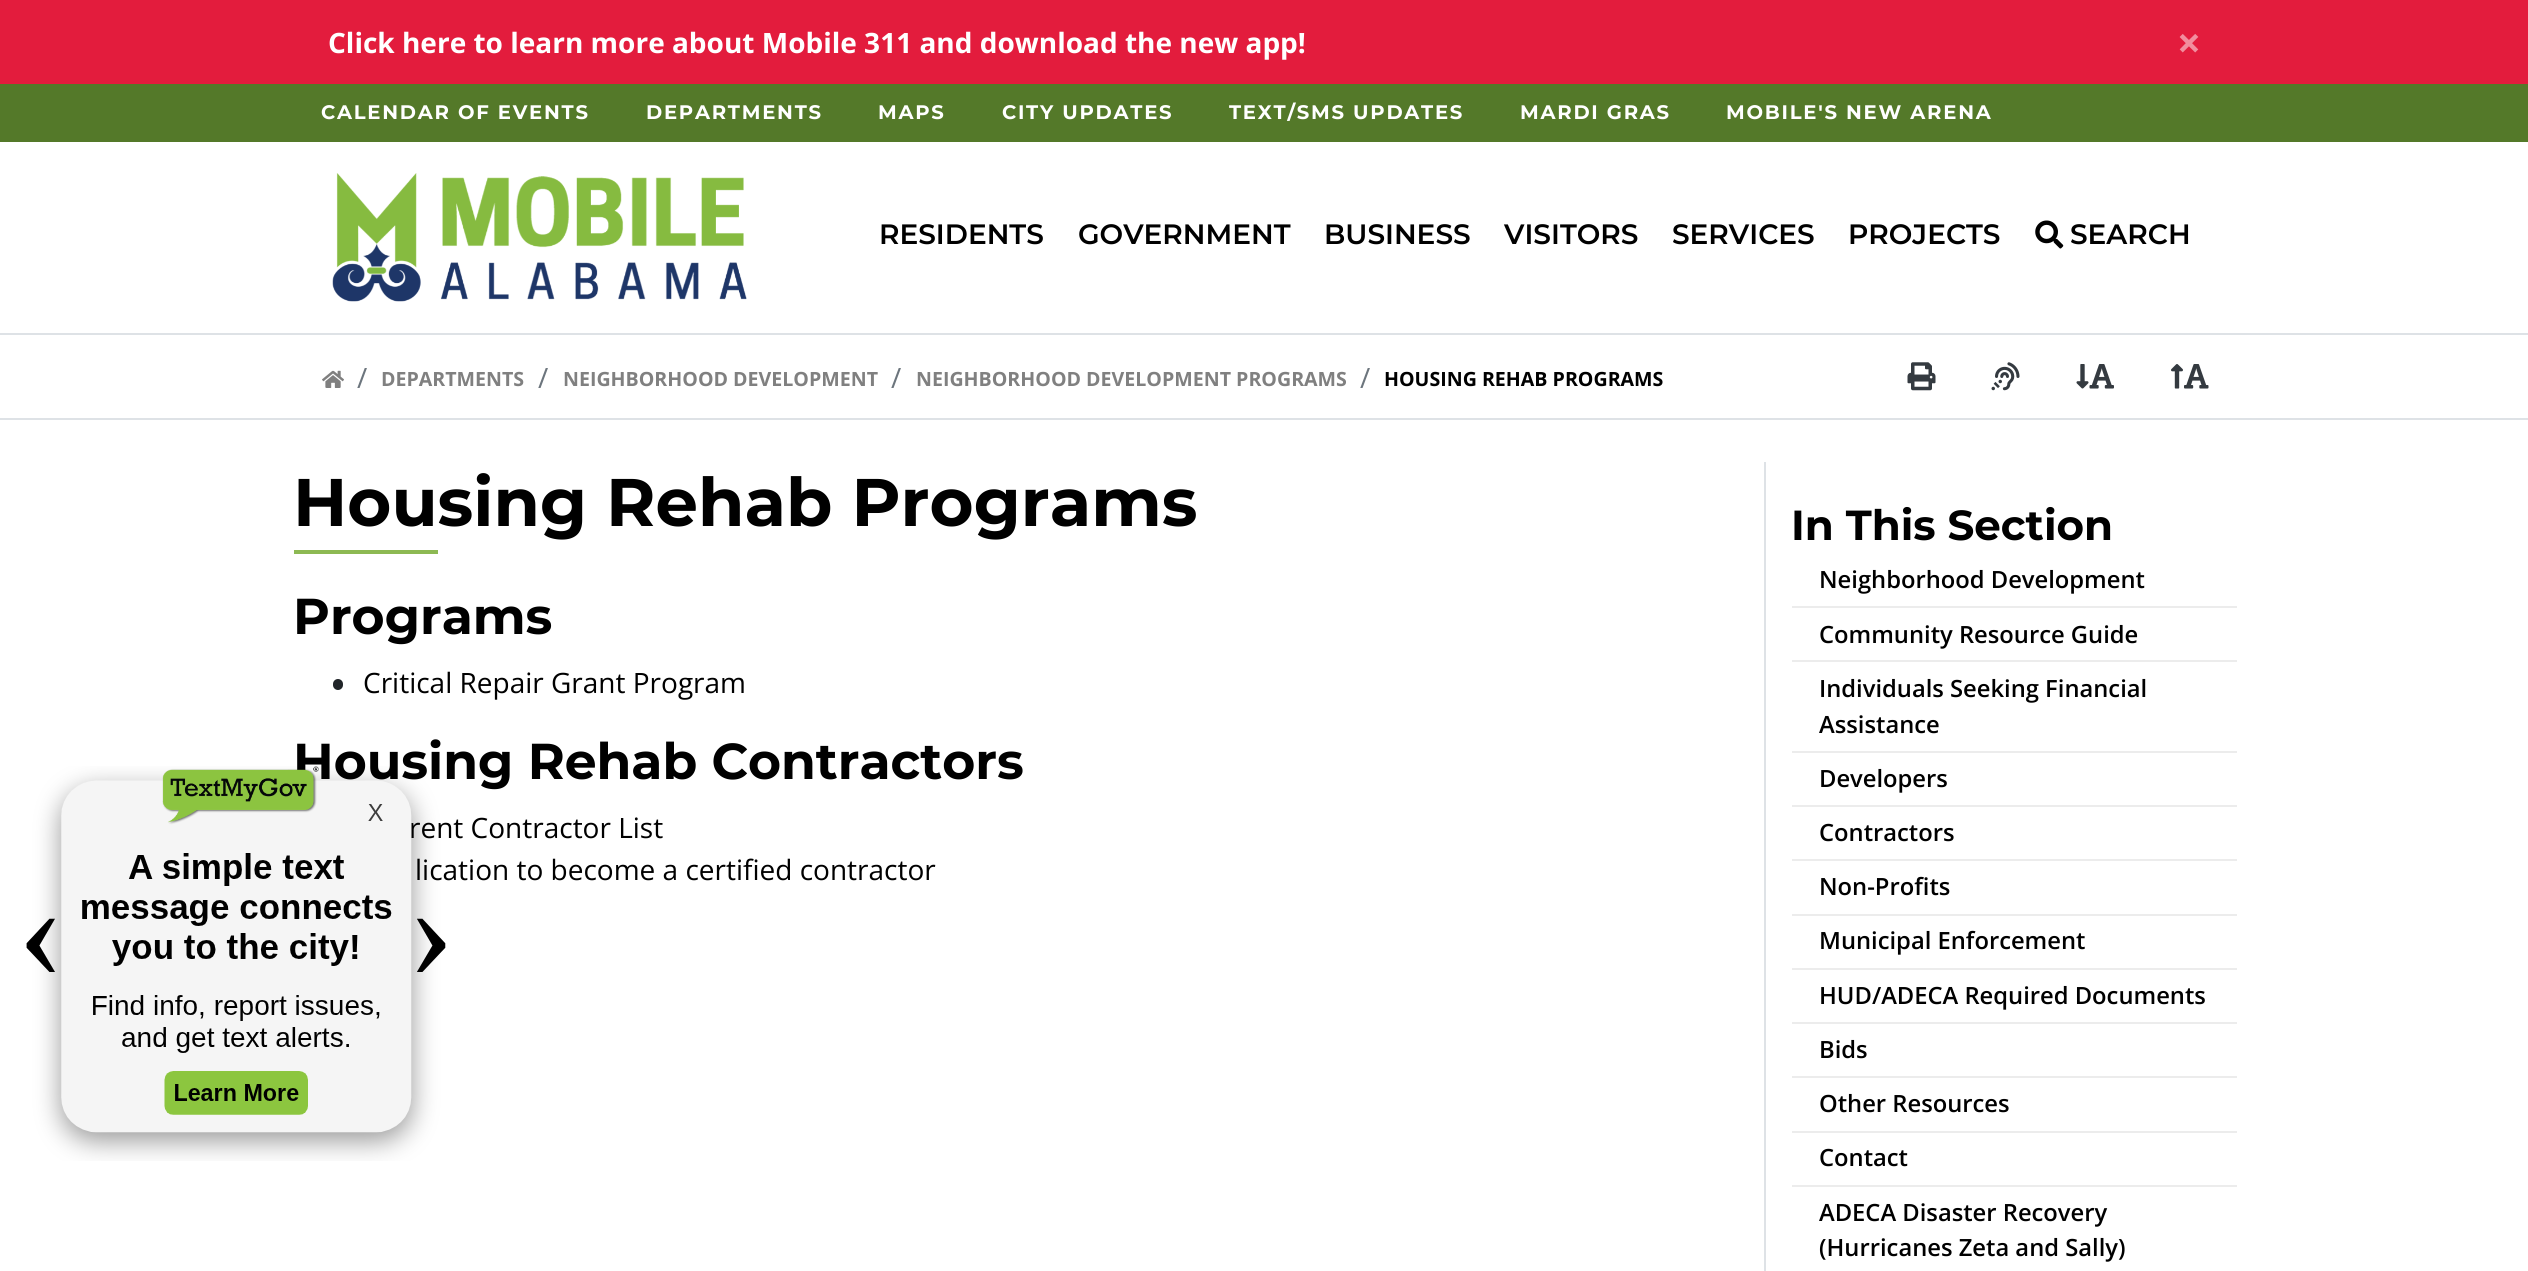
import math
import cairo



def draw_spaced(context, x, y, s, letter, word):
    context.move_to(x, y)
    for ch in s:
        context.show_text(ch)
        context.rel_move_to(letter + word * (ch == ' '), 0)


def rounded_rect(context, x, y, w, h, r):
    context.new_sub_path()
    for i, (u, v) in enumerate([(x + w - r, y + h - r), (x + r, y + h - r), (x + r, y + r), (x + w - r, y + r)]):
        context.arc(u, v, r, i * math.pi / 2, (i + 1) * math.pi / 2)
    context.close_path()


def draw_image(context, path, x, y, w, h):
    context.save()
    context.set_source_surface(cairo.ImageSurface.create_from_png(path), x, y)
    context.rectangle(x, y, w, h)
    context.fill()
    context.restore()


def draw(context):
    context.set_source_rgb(1, 1, 1)
    context.paint()
    context.set_source_rgb(222 / 255, 226 / 255, 230 / 255)
    context.rectangle(0, 333, 2528, 2)
    context.fill()
    context.set_source_rgb(227 / 255, 28 / 255, 61 / 255)
    context.rectangle(0, 0, 2528, 84)
    context.fill()
    context.set_source_rgb(84 / 255, 121 / 255, 41 / 255)
    context.rectangle(0, 84, 2528, 58)
    context.fill()
    draw_image(context, "images/1.png", 332, 173, 415, 129)
    draw_image(context, "images/2.png", 2035, 220, 29, 29)
    context.set_source_rgb(222 / 255, 226 / 255, 230 / 255)
    context.rectangle(0, 418, 2528, 2)
    context.fill()
    draw_image(context, "images/3.png", 322, 370, 22, 18)
    draw_image(context, "images/4.png", 1907, 362, 29, 29)
    draw_image(context, "images/5.png", 1991, 362, 29, 29)
    draw_image(context, "images/6.png", 2076, 364, 13, 25)
    draw_image(context, "images/7.png", 2089, 364, 25, 25)
    draw_image(context, "images/8.png", 2171, 364, 12, 25)
    draw_image(context, "images/9.png", 2184, 364, 25, 25)
    context.set_source_rgb(141 / 255, 185 / 255, 83 / 255)
    context.rectangle(294, 550, 144, 4)
    context.fill()
    context.set_source_rgb(33 / 255, 37 / 255, 41 / 255)
    rounded_rect(context, 333, 679, 10, 11, 5)
    context.fill()
    context.set_source_rgb(222 / 255, 226 / 255, 230 / 255)
    context.rectangle(1764, 462, 2, 809)
    context.fill()
    context.set_source_rgb(236 / 255, 236 / 255, 236 / 255)
    context.rectangle(1792, 606, 445, 2)
    context.fill()
    context.rectangle(1792, 660, 445, 2)
    context.fill()
    context.rectangle(1792, 751, 445, 2)
    context.fill()
    context.rectangle(1792, 805, 445, 2)
    context.fill()
    context.rectangle(1792, 859, 445, 2)
    context.fill()
    context.rectangle(1792, 914, 445, 2)
    context.fill()
    context.rectangle(1792, 968, 445, 2)
    context.fill()
    context.rectangle(1792, 1022, 445, 2)
    context.fill()
    context.rectangle(1792, 1076, 445, 2)
    context.fill()
    context.rectangle(1792, 1131, 445, 2)
    context.fill()
    context.rectangle(1792, 1185, 445, 2)
    context.fill()
    context.select_font_face("Open Sans", cairo.FontSlant.NORMAL, cairo.FontWeight.BOLD)
    context.set_font_size(28)
    context.set_source_rgb(1, 1, 1)
    context.move_to(328, 53)
    context.show_text("Click here to learn more about Mobile 311 and download the new app!")
    context.set_font_size(42)
    context.set_source_rgb(241 / 255, 142 / 255, 158 / 255)
    context.move_to(2177, 58)
    context.show_text("×")
    context.select_font_face("Montserrat", cairo.FontSlant.NORMAL, cairo.FontWeight.BOLD)
    context.set_font_size(19.6)
    context.set_source_rgb(1, 1, 1)
    draw_spaced(context, 321, 119, "CALENDAR OF EVENTS", 1.75, 0)
    draw_spaced(context, 646, 119, "DEPARTMENTS", 1.75, 0)
    draw_spaced(context, 878, 119, "MAPS", 1.75, 0)
    draw_spaced(context, 1002, 119, "CITY UPDATES", 1.75, 0)
    draw_spaced(context, 1229, 119, "TEXT/SMS UPDATES", 1.75, 0)
    draw_spaced(context, 1520, 119, "MARDI GRAS", 1.75, 0)
    draw_spaced(context, 1726, 119, "MOBILE'S NEW ARENA", 1.75, 0)
    context.select_font_face("Montserrat SemiBold")
    context.set_font_size(28)
    context.set_source_rgb(0, 0, 0)
    context.move_to(879, 244)
    context.show_text("RESIDENTS")
    context.move_to(1078, 244)
    context.show_text("GOVERNMENT")
    context.move_to(1324, 244)
    context.show_text("BUSINESS")
    context.move_to(1504, 244)
    context.show_text("VISITORS")
    context.move_to(1672, 244)
    context.show_text("SERVICES")
    context.move_to(1848, 244)
    context.show_text("PROJECTS")
    context.move_to(2070, 244)
    context.show_text("SEARCH")
    context.select_font_face("Open Sans")
    context.set_source_rgb(108 / 255, 117 / 255, 125 / 255)
    context.move_to(357, 388)
    context.show_text("/")
    context.select_font_face("Open Sans", cairo.FontSlant.NORMAL, cairo.FontWeight.BOLD)
    context.set_font_size(19.6)
    context.set_source_rgb(128 / 255, 128 / 255, 128 / 255)
    context.move_to(381, 386)
    context.show_text("DEPARTMENTS")
    context.select_font_face("Open Sans")
    context.set_font_size(28)
    context.set_source_rgb(108 / 255, 117 / 255, 125 / 255)
    context.move_to(538, 388)
    context.show_text("/")
    context.select_font_face("Open Sans", cairo.FontSlant.NORMAL, cairo.FontWeight.BOLD)
    context.set_font_size(19.6)
    context.set_source_rgb(128 / 255, 128 / 255, 128 / 255)
    context.move_to(563, 386)
    context.show_text("NEIGHBORHOOD DEVELOPMENT")
    context.select_font_face("Open Sans")
    context.set_font_size(28)
    context.set_source_rgb(108 / 255, 117 / 255, 125 / 255)
    context.move_to(891, 388)
    context.show_text("/")
    context.select_font_face("Open Sans", cairo.FontSlant.NORMAL, cairo.FontWeight.BOLD)
    context.set_font_size(19.6)
    context.set_source_rgb(128 / 255, 128 / 255, 128 / 255)
    context.move_to(916, 386)
    context.show_text("NEIGHBORHOOD DEVELOPMENT PROGRAMS")
    context.select_font_face("Open Sans")
    context.set_font_size(28)
    context.set_source_rgb(108 / 255, 117 / 255, 125 / 255)
    context.move_to(1360, 388)
    context.show_text("/")
    context.select_font_face("Open Sans", cairo.FontSlant.NORMAL, cairo.FontWeight.BOLD)
    context.set_font_size(19.6)
    context.set_source_rgb(0, 0, 0)
    context.move_to(1384, 386)
    context.show_text("HOUSING REHAB PROGRAMS")
    context.select_font_face("Montserrat", cairo.FontSlant.NORMAL, cairo.FontWeight.BOLD)
    context.set_font_size(67.25)
    context.move_to(293, 526)
    context.show_text("Housing Rehab Programs")
    context.set_font_size(50.4)
    context.move_to(293, 634)
    context.show_text("Programs")
    context.select_font_face("Open Sans")
    context.set_font_size(28)
    context.move_to(363, 693)
    context.show_text("Critical Repair Grant Program")
    context.select_font_face("Montserrat", cairo.FontSlant.NORMAL, cairo.FontWeight.BOLD)
    context.set_font_size(50.4)
    context.move_to(293, 779)
    context.show_text("Housing Rehab Contractors")
    context.select_font_face("Open Sans")
    context.set_font_size(28)
    context.move_to(409, 838)
    context.show_text("rent Contractor List")
    context.move_to(415, 880)
    context.show_text("lication to become a certified contractor")
    draw_image(context, "images/10.png", 26, 766, 420, 395)
    context.select_font_face("Montserrat", cairo.FontSlant.NORMAL, cairo.FontWeight.BOLD)
    context.set_font_size(42)
    context.move_to(1791, 540)
    context.show_text("In This Section")
    context.select_font_face("Open Sans SemiBold")
    context.set_font_size(23.75)
    context.move_to(1819, 588)
    context.show_text("Neighborhood Development")
    context.move_to(1819, 643)
    context.show_text("Community Resource Guide")
    context.move_to(1819, 697)
    context.show_text("Individuals Seeking Financial")
    context.move_to(1819, 733)
    context.show_text("Assistance")
    context.move_to(1819, 787)
    context.show_text("Developers")
    context.move_to(1819, 841)
    context.show_text("Contractors")
    context.move_to(1819, 895)
    context.show_text("Non-Profits")
    context.move_to(1819, 949)
    context.show_text("Municipal Enforcement")
    context.move_to(1819, 1004)
    context.show_text("HUD/ADECA Required Documents")
    context.move_to(1819, 1058)
    context.show_text("Bids")
    context.move_to(1819, 1112)
    context.show_text("Other Resources")
    context.move_to(1819, 1166)
    context.show_text("Contact")
    context.move_to(1819, 1221)
    context.show_text("ADECA Disaster Recovery")
    context.move_to(1819, 1256)
    context.show_text("(Hurricanes Zeta and Sally)")


surface = cairo.ImageSurface(cairo.Format.RGB24, 2528, 1271)
context = cairo.Context(surface)
options = cairo.FontOptions()
options.set_hint_metrics(cairo.HintMetrics.OFF)
options.set_hint_style(cairo.HintStyle.NONE)
context.set_font_options(options)
context.set_miter_limit(4)
draw(context)
surface.write_to_png("out.png")
